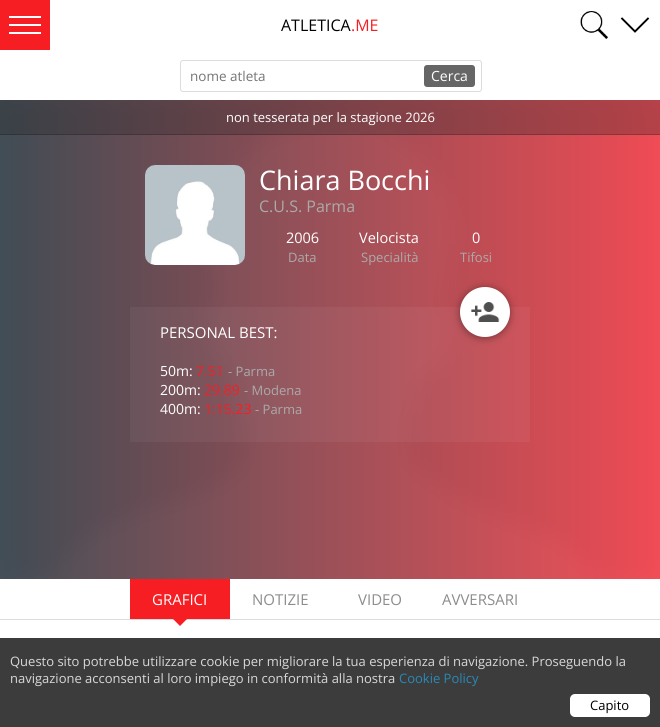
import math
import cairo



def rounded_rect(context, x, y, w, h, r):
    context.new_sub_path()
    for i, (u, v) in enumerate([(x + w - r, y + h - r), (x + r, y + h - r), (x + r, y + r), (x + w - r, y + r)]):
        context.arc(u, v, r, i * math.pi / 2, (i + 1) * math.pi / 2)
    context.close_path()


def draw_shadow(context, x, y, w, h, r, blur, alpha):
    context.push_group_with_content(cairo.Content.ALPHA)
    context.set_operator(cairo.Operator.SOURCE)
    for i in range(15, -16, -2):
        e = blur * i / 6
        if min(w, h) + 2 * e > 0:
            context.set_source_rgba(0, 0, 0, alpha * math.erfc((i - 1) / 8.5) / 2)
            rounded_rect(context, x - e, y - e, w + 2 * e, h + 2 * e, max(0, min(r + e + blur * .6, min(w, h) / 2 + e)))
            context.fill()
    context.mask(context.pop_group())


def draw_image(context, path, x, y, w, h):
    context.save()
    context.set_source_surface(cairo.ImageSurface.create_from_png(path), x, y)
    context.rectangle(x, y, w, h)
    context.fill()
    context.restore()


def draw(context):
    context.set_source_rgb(1, 1, 1)
    context.paint()
    context.set_source_rgb(246 / 255, 30 / 255, 35 / 255)
    context.rectangle(0, 0, 50, 50)
    context.fill()
    context.set_source_rgb(1, 1, 1)
    context.rectangle(9, 16, 32, 2)
    context.fill()
    context.rectangle(9, 24, 32, 2)
    context.fill()
    context.rectangle(9, 32, 32, 2)
    context.fill()
    draw_image(context, "images/1.png", 580, 11, 28, 28)
    draw_image(context, "images/2.png", 620, 17, 30, 16)
    rounded_rect(context, 180.5, 60.5, 301, 31, 2.5)
    context.set_source_rgb(220 / 255, 220 / 255, 220 / 255)
    context.set_line_width(1)
    context.stroke()
    context.set_source_rgb(102 / 255, 102 / 255, 102 / 255)
    rounded_rect(context, 424, 65, 51, 22, 3)
    context.fill()
    draw_image(context, "images/3.png", 0, 100, 660, 479)
    gradient = cairo.LinearGradient(660, 340, 0, 340)
    gradient.add_color_stop_rgba(0, 243 / 255, 66 / 255, 75 / 255, 0.93)
    gradient.add_color_stop_rgba(1, 55 / 255, 67 / 255, 75 / 255, 0.93)
    context.set_source(gradient)
    context.rectangle(0, 100, 660, 479)
    context.fill()
    context.set_source_rgba(40 / 255, 40 / 255, 40 / 255, 0.3)
    context.rectangle(0, 100, 660, 35)
    context.fill()
    context.set_source_rgba(0, 0, 0, 0.2)
    context.rectangle(0, 134, 660, 1)
    context.fill()
    draw_image(context, "images/4.png", 145, 165, 100, 100)
    context.set_source_rgba(250 / 255, 250 / 255, 250 / 255, 0.05)
    context.rectangle(130, 307, 400, 135)
    context.fill()
    context.set_source_rgb(0, 0, 0)
    draw_shadow(context, 460, 288, 50, 50, 25, 4, 0.4)
    context.set_source_rgb(1, 1, 1)
    context.arc(485, 312, 25, 0, 2 * math.pi)
    context.fill()
    draw_image(context, "images/5.png", 470, 302, 30, 20)
    context.set_source_rgb(220 / 255, 220 / 255, 220 / 255)
    context.rectangle(0, 619, 660, 1)
    context.fill()
    context.set_source_rgb(246 / 255, 30 / 255, 35 / 255)
    context.rectangle(130, 579, 100, 40)
    context.fill()
    context.new_path()
    context.move_to(180, 612)
    context.line_to(187, 619)
    context.line_to(180, 626)
    context.line_to(173, 619)
    context.close_path()
    context.fill()
    context.set_source_rgb(60 / 255, 60 / 255, 60 / 255)
    context.rectangle(0, 638, 660, 89)
    context.fill()
    context.set_source_rgb(1, 1, 1)
    rounded_rect(context, 570, 694, 80, 23, 5)
    context.fill()
    context.select_font_face("Open Sans")
    context.set_font_size(16)
    context.set_source_rgb(0, 0, 0)
    context.move_to(281, 31)
    context.show_text("ATLETICA")
    context.set_source_rgb(246 / 255, 30 / 255, 35 / 255)
    context.move_to(351, 31)
    context.show_text(".ME")
    context.set_font_size(13.5)
    context.set_source_rgb(117 / 255, 117 / 255, 117 / 255)
    context.move_to(190, 81)
    context.show_text("nome atleta")
    context.set_font_size(14)
    context.set_source_rgb(1, 1, 1)
    context.move_to(431, 81)
    context.show_text("Cerca")
    context.set_font_size(13)
    context.move_to(226, 122)
    context.show_text("non tesserata per la stagione 2026")
    context.set_font_size(27)
    context.move_to(259, 190)
    context.show_text("Chiara Bocchi")
    context.set_font_size(16)
    context.set_source_rgb(170 / 255, 170 / 255, 170 / 255)
    context.move_to(259, 212)
    context.show_text("C.U.S. Parma")
    context.set_font_size(14.5)
    context.set_source_rgb(1, 1, 1)
    context.move_to(286, 243)
    context.show_text("2006")
    context.set_font_size(13)
    context.set_source_rgb(170 / 255, 170 / 255, 170 / 255)
    context.move_to(288, 262)
    context.show_text("Data")
    context.set_font_size(14.5)
    context.set_source_rgb(1, 1, 1)
    context.move_to(359, 243)
    context.show_text("Velocista")
    context.set_font_size(13)
    context.set_source_rgb(170 / 255, 170 / 255, 170 / 255)
    context.move_to(361, 262)
    context.show_text("Specialità")
    context.set_font_size(14.5)
    context.set_source_rgb(1, 1, 1)
    context.move_to(472, 243)
    context.show_text("0")
    context.set_font_size(13)
    context.set_source_rgb(170 / 255, 170 / 255, 170 / 255)
    context.move_to(460, 262)
    context.show_text("Tifosi")
    context.set_font_size(15)
    context.set_source_rgb(1, 1, 1)
    context.move_to(160, 338)
    context.show_text("PERSONAL BEST:")
    context.set_font_size(14)
    context.move_to(160, 376)
    context.show_text("50m:")
    context.set_source_rgb(246 / 255, 30 / 255, 35 / 255)
    context.move_to(196, 376)
    context.show_text("7.51")
    context.set_font_size(13)
    context.set_source_rgb(170 / 255, 170 / 255, 170 / 255)
    context.move_to(228, 376)
    context.show_text("- Parma")
    context.set_font_size(14)
    context.set_source_rgb(1, 1, 1)
    context.move_to(160, 395)
    context.show_text("200m:")
    context.set_source_rgb(246 / 255, 30 / 255, 35 / 255)
    context.move_to(204, 395)
    context.show_text("29.89")
    context.set_font_size(13)
    context.set_source_rgb(170 / 255, 170 / 255, 170 / 255)
    context.move_to(244, 395)
    context.show_text("- Modena")
    context.set_font_size(14)
    context.set_source_rgb(1, 1, 1)
    context.move_to(160, 414)
    context.show_text("400m:")
    context.set_source_rgb(246 / 255, 30 / 255, 35 / 255)
    context.move_to(204, 414)
    context.show_text("1:15.23")
    context.set_font_size(13)
    context.set_source_rgb(170 / 255, 170 / 255, 170 / 255)
    context.move_to(255, 414)
    context.show_text("- Parma")
    context.set_font_size(15)
    context.set_source_rgb(1, 1, 1)
    context.move_to(152, 605)
    context.show_text("GRAFICI")
    context.set_source_rgb(140 / 255, 140 / 255, 140 / 255)
    context.move_to(252, 605)
    context.show_text("NOTIZIE")
    context.move_to(358, 605)
    context.show_text("VIDEO")
    context.move_to(442, 605)
    context.show_text("AVVERSARI")
    context.set_font_size(13)
    context.set_source_rgb(216 / 255, 216 / 255, 216 / 255)
    context.move_to(10, 666)
    context.show_text("Questo sito potrebbe utilizzare cookie per migliorare la tua esperienza di navigazione. Proseguendo la")
    context.move_to(10, 683)
    context.show_text("navigazione acconsenti al loro impiego in conformità alla nostra")
    context.set_source_rgb(41 / 255, 137 / 255, 182 / 255)
    context.move_to(399, 683)
    context.show_text("Cookie Policy")
    context.set_source_rgb(0, 0, 0)
    context.move_to(590, 710)
    context.show_text("Capito")


surface = cairo.ImageSurface(cairo.Format.RGB24, 660, 727)
context = cairo.Context(surface)
options = cairo.FontOptions()
options.set_hint_metrics(cairo.HintMetrics.OFF)
options.set_hint_style(cairo.HintStyle.NONE)
context.set_font_options(options)
context.set_miter_limit(4)
draw(context)
surface.write_to_png("out.png")
